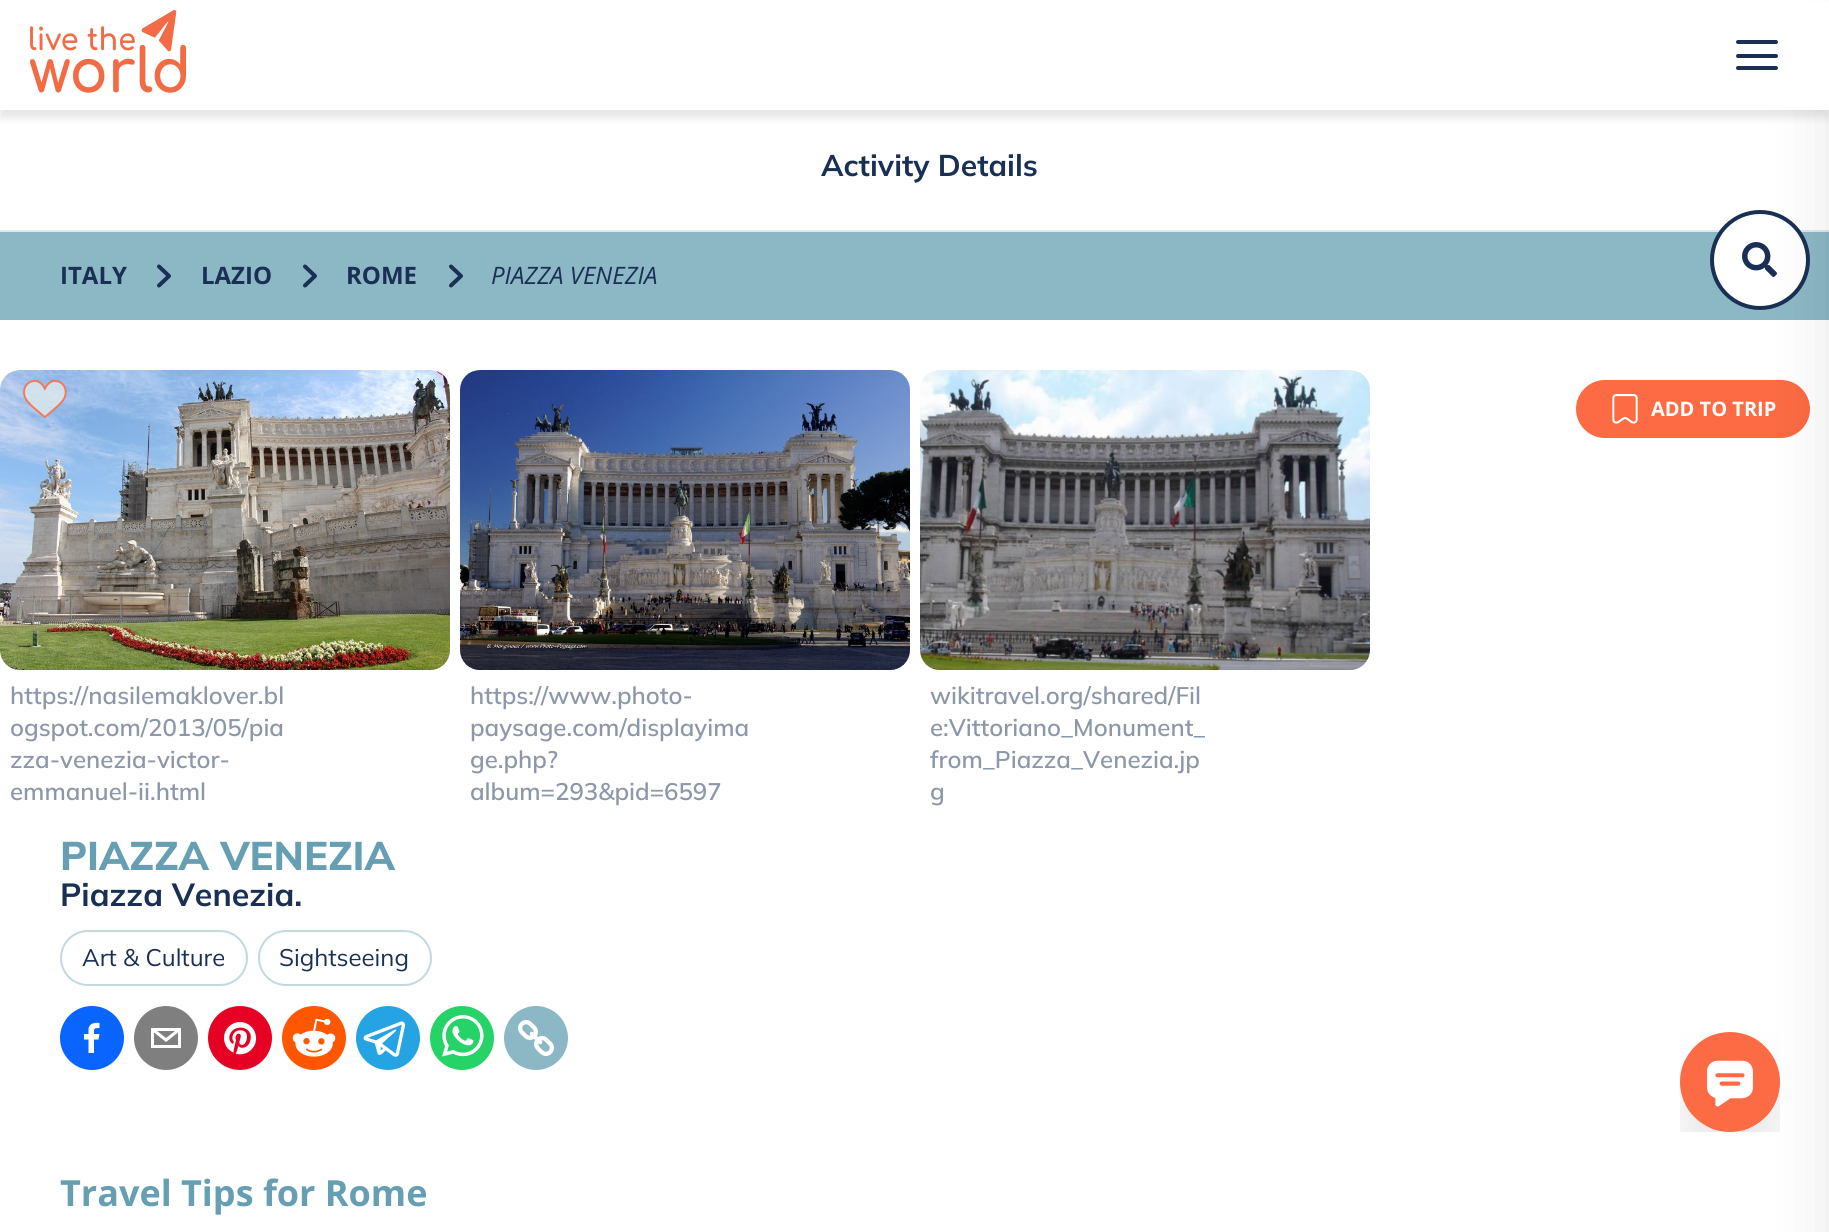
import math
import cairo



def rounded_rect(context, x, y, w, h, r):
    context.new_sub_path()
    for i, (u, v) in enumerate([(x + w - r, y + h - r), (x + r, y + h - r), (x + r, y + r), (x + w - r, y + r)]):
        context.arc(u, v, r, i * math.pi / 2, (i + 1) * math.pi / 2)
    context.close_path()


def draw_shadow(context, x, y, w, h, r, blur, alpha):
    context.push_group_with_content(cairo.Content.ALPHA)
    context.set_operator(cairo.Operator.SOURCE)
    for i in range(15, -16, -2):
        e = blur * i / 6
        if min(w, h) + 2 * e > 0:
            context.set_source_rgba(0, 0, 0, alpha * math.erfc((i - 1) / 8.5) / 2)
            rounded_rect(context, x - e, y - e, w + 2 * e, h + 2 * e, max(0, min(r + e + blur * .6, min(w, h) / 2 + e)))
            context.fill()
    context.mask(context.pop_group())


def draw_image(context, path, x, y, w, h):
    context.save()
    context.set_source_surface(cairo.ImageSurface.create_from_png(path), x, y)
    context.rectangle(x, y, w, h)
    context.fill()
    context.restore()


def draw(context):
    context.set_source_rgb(1, 1, 1)
    context.paint()
    context.set_source_rgb(0, 0, 0)
    draw_shadow(context, 0, 8, 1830, 110, 0, 4, 0.1)
    context.set_source_rgb(222 / 255, 230 / 255, 238 / 255)
    context.rectangle(0, 230, 1829, 2)
    context.fill()
    context.set_source_rgb(140 / 255, 183 / 255, 197 / 255)
    context.rectangle(0, 232, 1829, 88)
    context.fill()
    context.set_source_rgb(1, 1, 1)
    context.arc(1760, 260, 48, 0, 2 * math.pi)
    context.fill_preserve()
    context.set_source_rgb(25 / 255, 47 / 255, 84 / 255)
    context.set_line_width(4)
    context.stroke()
    draw_image(context, "images/2.png", 1742, 242, 35, 35)
    context.set_source_rgb(252 / 255, 107 / 255, 67 / 255)
    rounded_rect(context, 1578, 382, 230, 54, 27)
    context.fill_preserve()
    context.stroke()
    context.set_source_rgb(0, 0, 0)
    draw_shadow(context, 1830, 40, 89, 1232, 0, 30, 0.1)
    context.set_source_rgb(1, 1, 1)
    context.rectangle(0, 2, 1829, 108)
    context.fill()
    draw_image(context, "images/1.png", 30, 10, 156, 83)
    context.set_source_rgb(25 / 255, 47 / 255, 84 / 255)
    rounded_rect(context, 1736, 40, 42, 4, 2)
    context.fill()
    rounded_rect(context, 1736, 54, 42, 4, 2)
    context.fill()
    rounded_rect(context, 1736, 66, 42, 4, 2)
    context.fill()
    context.new_path()
    context.move_to(159, 285.5)
    context.line_to(169, 276)
    context.line_to(159, 266.5)
    context.set_line_cap(cairo.LineCap.ROUND)
    context.set_line_join(cairo.LineJoin.ROUND)
    context.stroke()
    context.new_path()
    context.move_to(305, 285.5)
    context.line_to(315, 276)
    context.line_to(305, 266.5)
    context.stroke()
    context.new_path()
    context.move_to(451, 285.5)
    context.line_to(461, 276)
    context.line_to(451, 266.5)
    context.stroke()
    draw_image(context, "images/5.png", 0, 370, 450, 300)
    draw_image(context, "images/3.png", 23, 380, 44, 38)
    draw_image(context, "images/4.png", 1612, 394, 26, 30)
    draw_image(context, "images/6.png", 460, 370, 450, 300)
    draw_image(context, "images/7.png", 920, 370, 450, 300)
    rounded_rect(context, 61, 931, 186, 54, 27)
    context.set_source_rgb(194 / 255, 217 / 255, 224 / 255)
    context.set_line_width(2)
    context.set_line_cap(cairo.LineCap.BUTT)
    context.set_line_join(cairo.LineJoin.MITER)
    context.stroke()
    rounded_rect(context, 259, 931, 172, 54, 27)
    context.stroke()
    context.set_source_rgb(9 / 255, 101 / 255, 254 / 255)
    context.arc(92, 1038, 32, 0, 2 * math.pi)
    context.fill()
    context.set_source_rgb(1, 1, 1)
    context.new_path()
    context.move_to(94, 1053)
    context.line_to(94, 1039.5)
    context.line_to(98.5, 1039.5)
    context.line_to(99.5, 1034)
    context.line_to(94, 1034)
    context.curve_to(94, 1028.5, 93.5, 1028, 99.5, 1028)
    context.line_to(99.5, 1023)
    context.curve_to(95, 1022.5, 89.5, 1023, 88.5, 1028.5)
    context.line_to(88.5, 1034)
    context.line_to(84, 1034)
    context.line_to(84, 1039.5)
    context.line_to(88.5, 1039.5)
    context.line_to(88.5, 1053)
    context.close_path()
    context.fill()
    context.set_source_rgb(127 / 255, 127 / 255, 127 / 255)
    context.arc(166, 1038, 32, 0, 2 * math.pi)
    context.fill()
    context.set_source_rgb(1, 1, 1)
    context.new_path()
    context.move_to(151, 1028)
    context.line_to(151, 1048)
    context.line_to(181, 1048)
    context.line_to(181, 1028)
    context.close_path()
    context.move_to(175, 1031)
    context.line_to(166, 1038)
    context.line_to(157, 1031)
    context.close_path()
    context.move_to(154, 1045)
    context.line_to(154, 1032.5)
    context.line_to(166, 1042)
    context.line_to(178, 1032.5)
    context.line_to(178, 1045)
    context.close_path()
    context.fill()
    draw_image(context, "images/8.png", 208, 1006, 64, 64)
    draw_image(context, "images/9.png", 282, 1006, 64, 64)
    draw_image(context, "images/10.png", 356, 1006, 64, 64)
    draw_image(context, "images/11.png", 430, 1006, 64, 64)
    draw_image(context, "images/12.png", 504, 1006, 64, 64)
    draw_image(context, "images/13.png", 1680, 1032, 100, 100)
    context.select_font_face("Mulish", cairo.FontSlant.NORMAL, cairo.FontWeight.BOLD)
    context.set_font_size(30)
    context.set_source_rgb(25 / 255, 47 / 255, 84 / 255)
    context.move_to(821, 176)
    context.show_text("Activity Details")
    context.select_font_face("Open Sans", cairo.FontSlant.NORMAL, cairo.FontWeight.BOLD)
    context.set_font_size(24)
    context.move_to(60, 284)
    context.show_text("ITALY")
    context.move_to(201, 284)
    context.show_text("LAZIO")
    context.move_to(346, 284)
    context.show_text("ROME")
    context.select_font_face("Open Sans", cairo.FontSlant.ITALIC)
    context.move_to(491, 284)
    context.show_text("PIAZZA VENEZIA")
    context.select_font_face("Open Sans", cairo.FontSlant.NORMAL, cairo.FontWeight.BOLD)
    context.set_font_size(20)
    context.set_source_rgb(1, 1, 1)
    context.move_to(1651, 416)
    context.show_text("ADD TO TRIP")
    context.select_font_face("Mulish SemiBold")
    context.set_font_size(24)
    context.set_source_rgb(140 / 255, 151 / 255, 169 / 255)
    context.move_to(10, 704)
    context.show_text("https://nasilemaklover.bl")
    context.move_to(10, 736)
    context.show_text("ogspot.com/2013/05/pia")
    context.move_to(10, 768)
    context.show_text("zza-venezia-victor-")
    context.move_to(10, 800)
    context.show_text("emmanuel-ii.html")
    context.move_to(470, 704)
    context.show_text("https://www.photo-")
    context.move_to(470, 736)
    context.show_text("paysage.com/displayima")
    context.move_to(470, 768)
    context.show_text("ge.php?")
    context.move_to(470, 800)
    context.show_text("album=293&pid=6597")
    context.move_to(930, 704)
    context.show_text("wikitravel.org/shared/Fil")
    context.move_to(930, 736)
    context.show_text("e:Vittoriano_Monument_")
    context.move_to(930, 768)
    context.show_text("from_Piazza_Venezia.jp")
    context.move_to(930, 800)
    context.show_text("g")
    context.select_font_face("Mulish ExtraBold")
    context.set_font_size(40)
    context.set_source_rgb(102 / 255, 159 / 255, 178 / 255)
    context.move_to(60, 870)
    context.show_text("PIAZZA VENEZIA")
    context.select_font_face("Mulish", cairo.FontSlant.NORMAL, cairo.FontWeight.BOLD)
    context.set_font_size(32)
    context.set_source_rgb(25 / 255, 47 / 255, 84 / 255)
    context.move_to(60, 906)
    context.show_text("Piazza Venezia.")
    context.select_font_face("Mulish")
    context.set_font_size(24)
    context.move_to(82, 966)
    context.show_text("Art & Culture")
    context.move_to(279, 966)
    context.show_text("Sightseeing")
    context.select_font_face("Open Sans", cairo.FontSlant.NORMAL, cairo.FontWeight.BOLD)
    context.set_font_size(36)
    context.set_source_rgb(102 / 255, 159 / 255, 178 / 255)
    context.move_to(60, 1206)
    context.show_text("Travel Tips for Rome")


surface = cairo.ImageSurface(cairo.Format.RGB24, 1829, 1232)
context = cairo.Context(surface)
options = cairo.FontOptions()
options.set_hint_metrics(cairo.HintMetrics.OFF)
options.set_hint_style(cairo.HintStyle.NONE)
context.set_font_options(options)
context.set_miter_limit(4)
draw(context)
surface.write_to_png("out.png")
